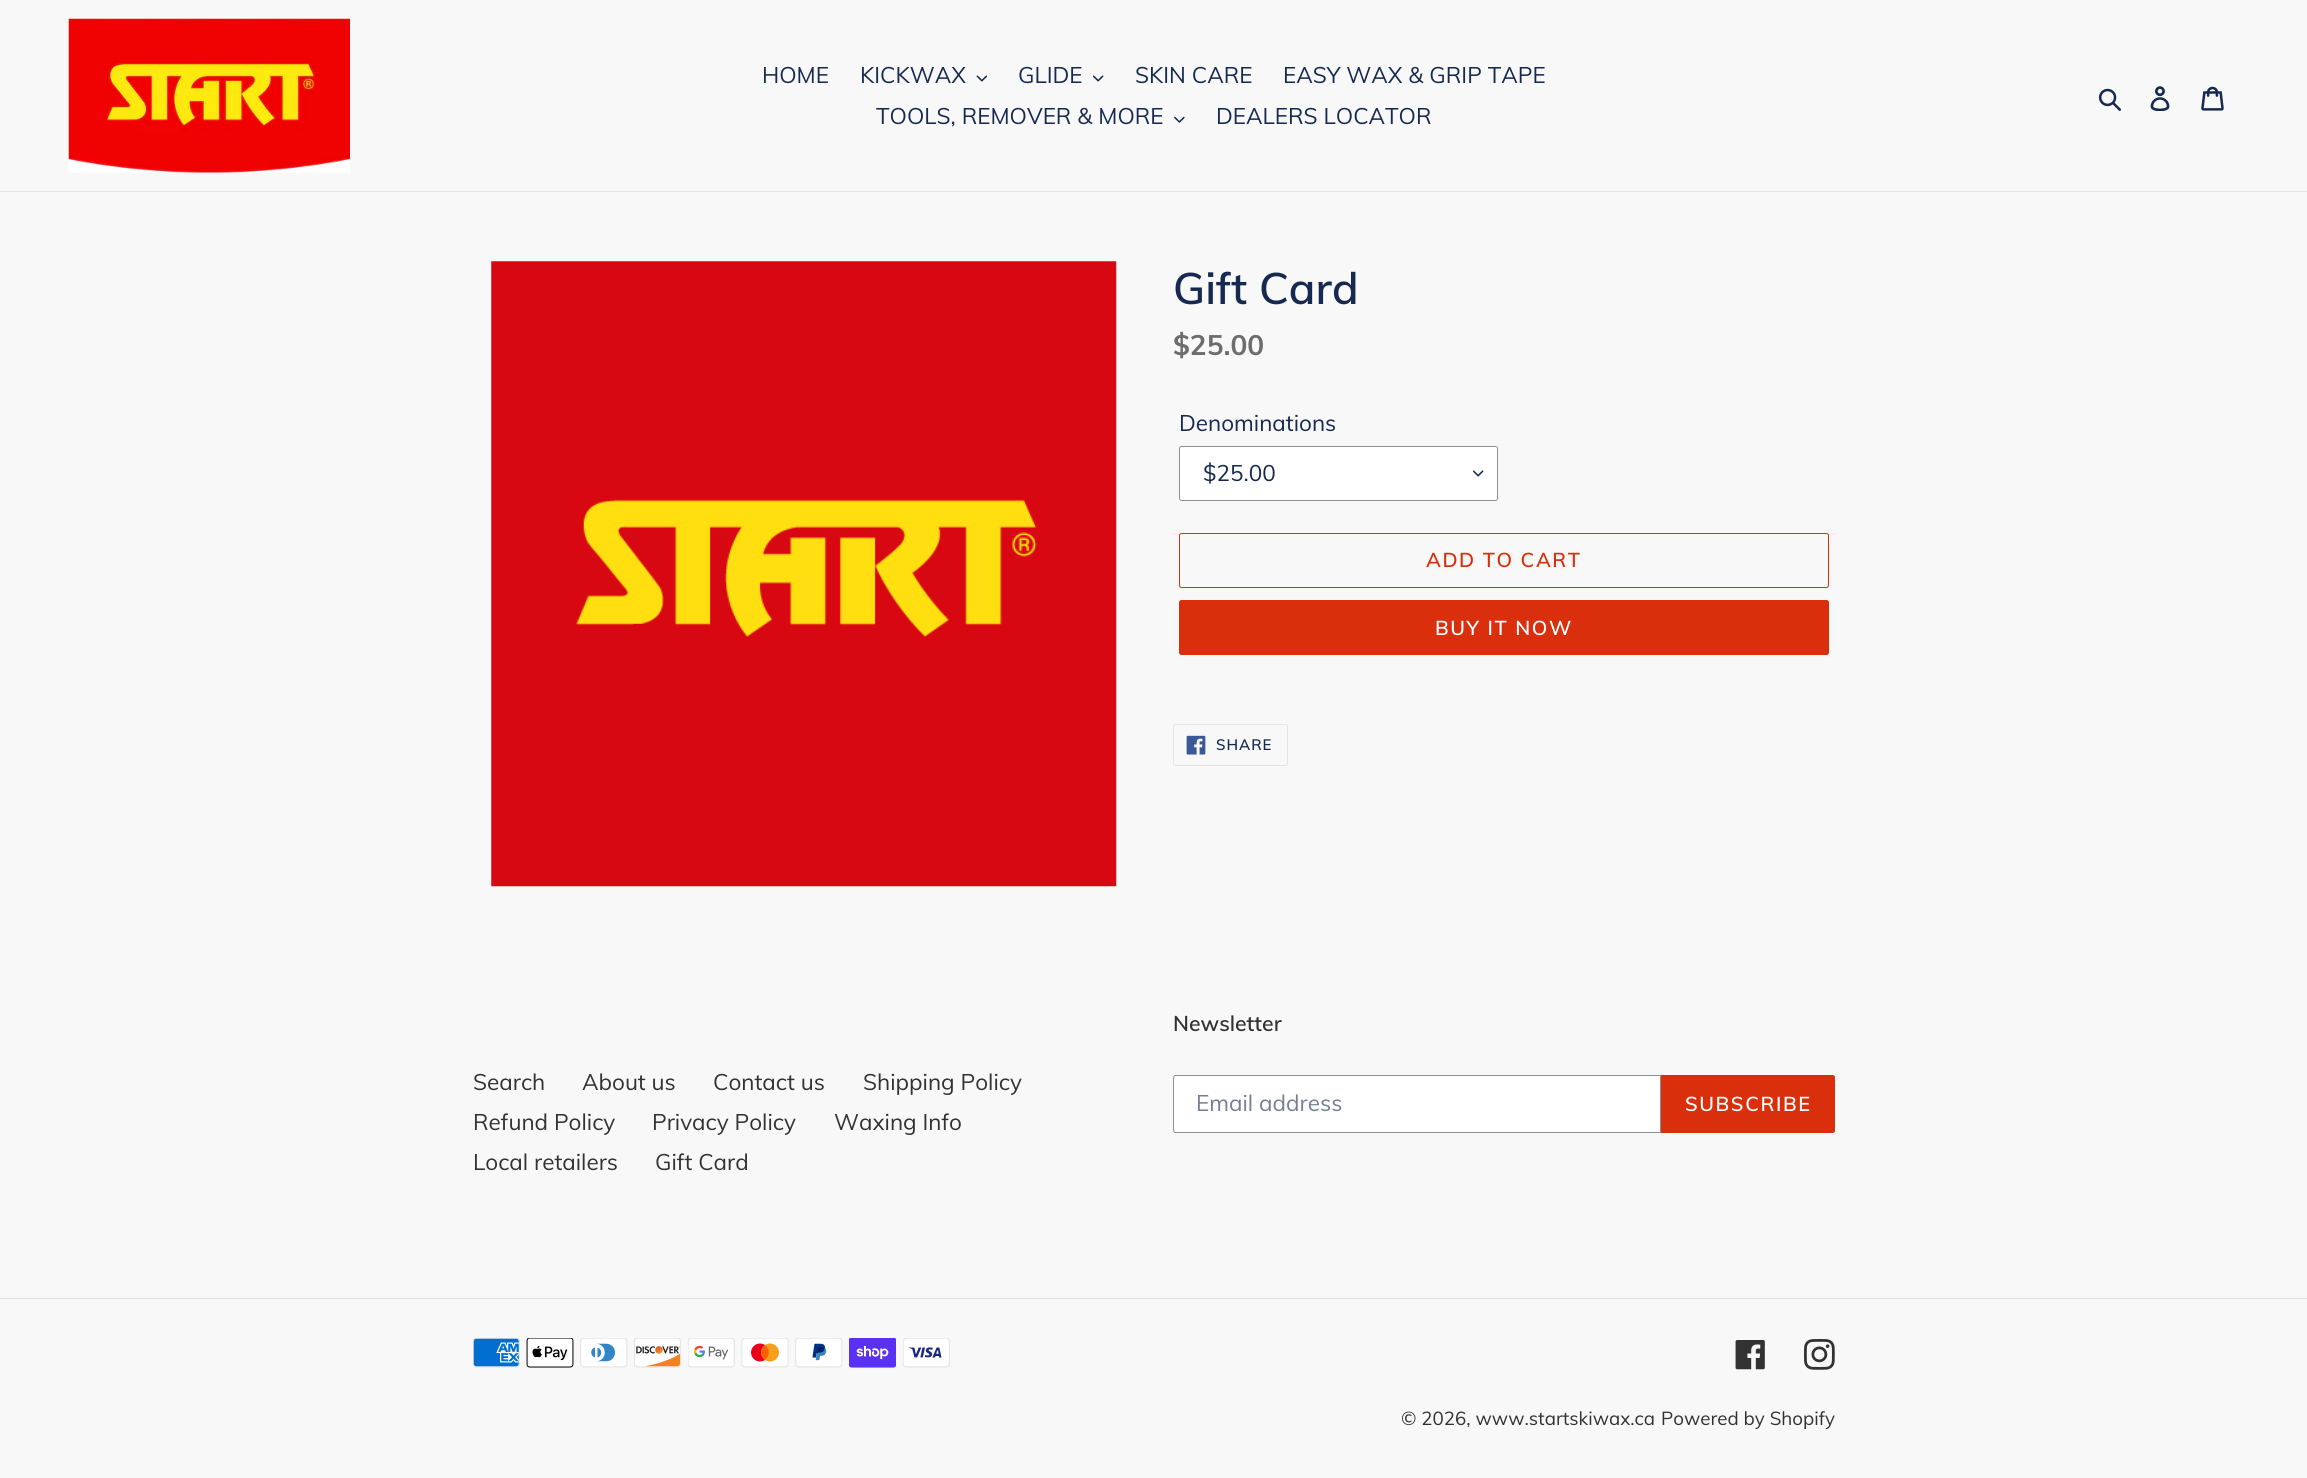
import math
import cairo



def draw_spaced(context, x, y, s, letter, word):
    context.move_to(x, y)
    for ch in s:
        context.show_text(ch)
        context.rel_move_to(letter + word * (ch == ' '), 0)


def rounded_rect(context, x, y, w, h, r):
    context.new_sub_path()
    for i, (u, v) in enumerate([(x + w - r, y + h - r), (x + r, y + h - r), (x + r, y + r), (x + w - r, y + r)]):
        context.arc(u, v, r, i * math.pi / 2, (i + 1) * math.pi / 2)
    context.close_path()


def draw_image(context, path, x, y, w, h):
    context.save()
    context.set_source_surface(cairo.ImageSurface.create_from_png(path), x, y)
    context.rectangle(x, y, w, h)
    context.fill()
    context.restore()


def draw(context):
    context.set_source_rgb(248 / 255, 248 / 255, 248 / 255)
    context.paint()
    context.set_source_rgb(228 / 255, 228 / 255, 228 / 255)
    context.rectangle(0, 191, 2307, 1)
    context.fill()
    draw_image(context, "images/1.png", 68, 18, 282, 155)
    draw_image(context, "images/2.png", 976, 75, 12, 7)
    draw_image(context, "images/3.png", 1093, 75, 11, 7)
    draw_image(context, "images/4.png", 1174, 116, 11, 7)
    draw_image(context, "images/5.png", 2098, 88, 23, 23)
    draw_image(context, "images/6.png", 2150, 86, 20, 25)
    draw_image(context, "images/7.png", 2201, 86, 23, 25)
    draw_image(context, "images/8.png", 491, 261, 626, 626)
    context.set_source_rgb(1, 1, 1)
    rounded_rect(context, 1179, 446, 319, 55, 2.5)
    context.fill()
    draw_image(context, "images/9.png", 1473, 470, 11, 7)
    rounded_rect(context, 1179.5, 446.5, 318, 54, 2)
    context.set_source_rgb(144 / 255, 144 / 255, 144 / 255)
    context.set_line_width(1)
    context.stroke()
    rounded_rect(context, 1179.5, 533.5, 649, 54, 2)
    context.set_source_rgb(218 / 255, 47 / 255, 12 / 255)
    context.stroke()
    rounded_rect(context, 1179, 600, 650, 55, 2.5)
    context.fill()
    rounded_rect(context, 1173.5, 724.5, 114, 41, 2)
    context.set_source_rgb(228 / 255, 228 / 255, 228 / 255)
    context.stroke()
    draw_image(context, "images/10.png", 1186, 735, 20, 20)
    context.set_source_rgb(1, 1, 1)
    context.new_path()
    context.move_to(1175.5, 1075.5)
    context.line_to(1660.5, 1075.5)
    context.line_to(1660.5, 1132.5)
    context.line_to(1175.5, 1132.5)
    context.curve_to(1174.5, 1132.5, 1173.5, 1131.5, 1173.5, 1130.5)
    context.line_to(1173.5, 1077.5)
    context.curve_to(1173.5, 1076.5, 1174.5, 1075.5, 1175.5, 1075.5)
    context.close_path()
    context.fill_preserve()
    context.set_source_rgb(144 / 255, 144 / 255, 144 / 255)
    context.stroke()
    context.set_source_rgb(218 / 255, 47 / 255, 12 / 255)
    context.new_path()
    context.move_to(1661, 1075)
    context.line_to(1832.5, 1075)
    context.curve_to(1834, 1075, 1835, 1076, 1835, 1077.5)
    context.line_to(1835, 1130.5)
    context.curve_to(1835, 1132, 1834, 1133, 1832.5, 1133)
    context.line_to(1661, 1133)
    context.close_path()
    context.fill()
    context.set_source_rgb(221 / 255, 221 / 255, 221 / 255)
    context.rectangle(0, 1298, 2307, 1)
    context.fill()
    draw_image(context, "images/11.png", 473, 1338, 47, 30)
    draw_image(context, "images/12.png", 526, 1338, 48, 30)
    draw_image(context, "images/13.png", 580, 1338, 48, 30)
    draw_image(context, "images/14.png", 634, 1338, 47, 30)
    draw_image(context, "images/15.png", 688, 1338, 47, 30)
    draw_image(context, "images/16.png", 741, 1338, 48, 30)
    draw_image(context, "images/17.png", 795, 1338, 48, 30)
    draw_image(context, "images/18.png", 849, 1338, 47, 30)
    draw_image(context, "images/19.png", 903, 1338, 47, 30)
    draw_image(context, "images/20.png", 1735, 1340, 30, 30)
    draw_image(context, "images/21.png", 1804, 1339, 31, 31)
    context.select_font_face("Muli")
    context.set_font_size(22.5)
    context.set_source_rgb(22 / 255, 41 / 255, 80 / 255)
    context.move_to(762, 83)
    context.show_text("HOME")
    context.move_to(860, 83)
    context.show_text("KICKWAX")
    context.move_to(1018, 83)
    context.show_text("GLIDE")
    context.move_to(1135, 83)
    context.show_text("SKIN CARE")
    context.move_to(1283, 83)
    context.show_text("EASY WAX & GRIP TAPE")
    context.move_to(876, 124)
    context.show_text("TOOLS, REMOVER & MORE")
    context.move_to(1216, 124)
    context.show_text("DEALERS LOCATOR")
    context.select_font_face("Muli SemiBold")
    context.set_font_size(43.75)
    context.move_to(1173, 304)
    context.show_text("Gift Card")
    context.select_font_face("Muli", cairo.FontSlant.NORMAL, cairo.FontWeight.BOLD)
    context.set_font_size(28)
    context.set_source_rgb(109 / 255, 109 / 255, 109 / 255)
    context.move_to(1173, 355)
    context.show_text("$25.00")
    context.select_font_face("Muli")
    context.set_font_size(22.5)
    context.set_source_rgb(22 / 255, 41 / 255, 80 / 255)
    context.move_to(1179, 431)
    context.show_text("Denominations")
    context.move_to(1203, 481)
    context.show_text("$25.00")
    context.select_font_face("Muli SemiBold")
    context.set_font_size(20)
    context.set_source_rgb(218 / 255, 47 / 255, 12 / 255)
    draw_spaced(context, 1426, 567, "ADD TO CART", 1.6, 0)
    context.set_source_rgb(1, 1, 1)
    draw_spaced(context, 1435, 635, "BUY IT NOW", 1.6, 0)
    context.set_font_size(15)
    context.set_source_rgb(22 / 255, 41 / 255, 80 / 255)
    draw_spaced(context, 1216, 750, "SHARE", 1, 0)
    context.select_font_face("Muli")
    context.set_font_size(22.5)
    context.set_source_rgb(51 / 255, 50 / 255, 50 / 255)
    context.move_to(473, 1090)
    context.show_text("Search")
    context.move_to(582, 1090)
    context.show_text("About us")
    context.move_to(713, 1090)
    context.show_text("Contact us")
    context.move_to(863, 1090)
    context.show_text("Shipping Policy")
    context.move_to(473, 1130)
    context.show_text("Refund Policy")
    context.move_to(652, 1130)
    context.show_text("Privacy Policy")
    context.move_to(834, 1130)
    context.show_text("Waxing Info")
    context.move_to(473, 1170)
    context.show_text("Local retailers")
    context.move_to(655, 1170)
    context.show_text("Gift Card")
    context.select_font_face("Muli SemiBold")
    context.set_font_size(21.25)
    context.move_to(1173, 1031)
    context.show_text("Newsletter")
    context.select_font_face("Muli")
    context.set_font_size(22.5)
    context.set_source_rgb(115 / 255, 127 / 255, 150 / 255)
    context.move_to(1196, 1111)
    context.show_text("Email address")
    context.select_font_face("Muli SemiBold")
    context.set_font_size(20)
    context.set_source_rgb(1, 1, 1)
    draw_spaced(context, 1685, 1111, "SUBSCRIBE", 1.6, 0)
    context.select_font_face("Muli")
    context.set_font_size(18.75)
    context.set_source_rgb(51 / 255, 50 / 255, 50 / 255)
    context.move_to(1401, 1425)
    context.show_text("© 2026, www.startskiwax.ca")
    context.move_to(1661, 1425)
    context.show_text("Powered by Shopify")


surface = cairo.ImageSurface(cairo.Format.RGB24, 2307, 1478)
context = cairo.Context(surface)
options = cairo.FontOptions()
options.set_hint_metrics(cairo.HintMetrics.OFF)
options.set_hint_style(cairo.HintStyle.NONE)
context.set_font_options(options)
context.set_miter_limit(4)
draw(context)
surface.write_to_png("out.png")
